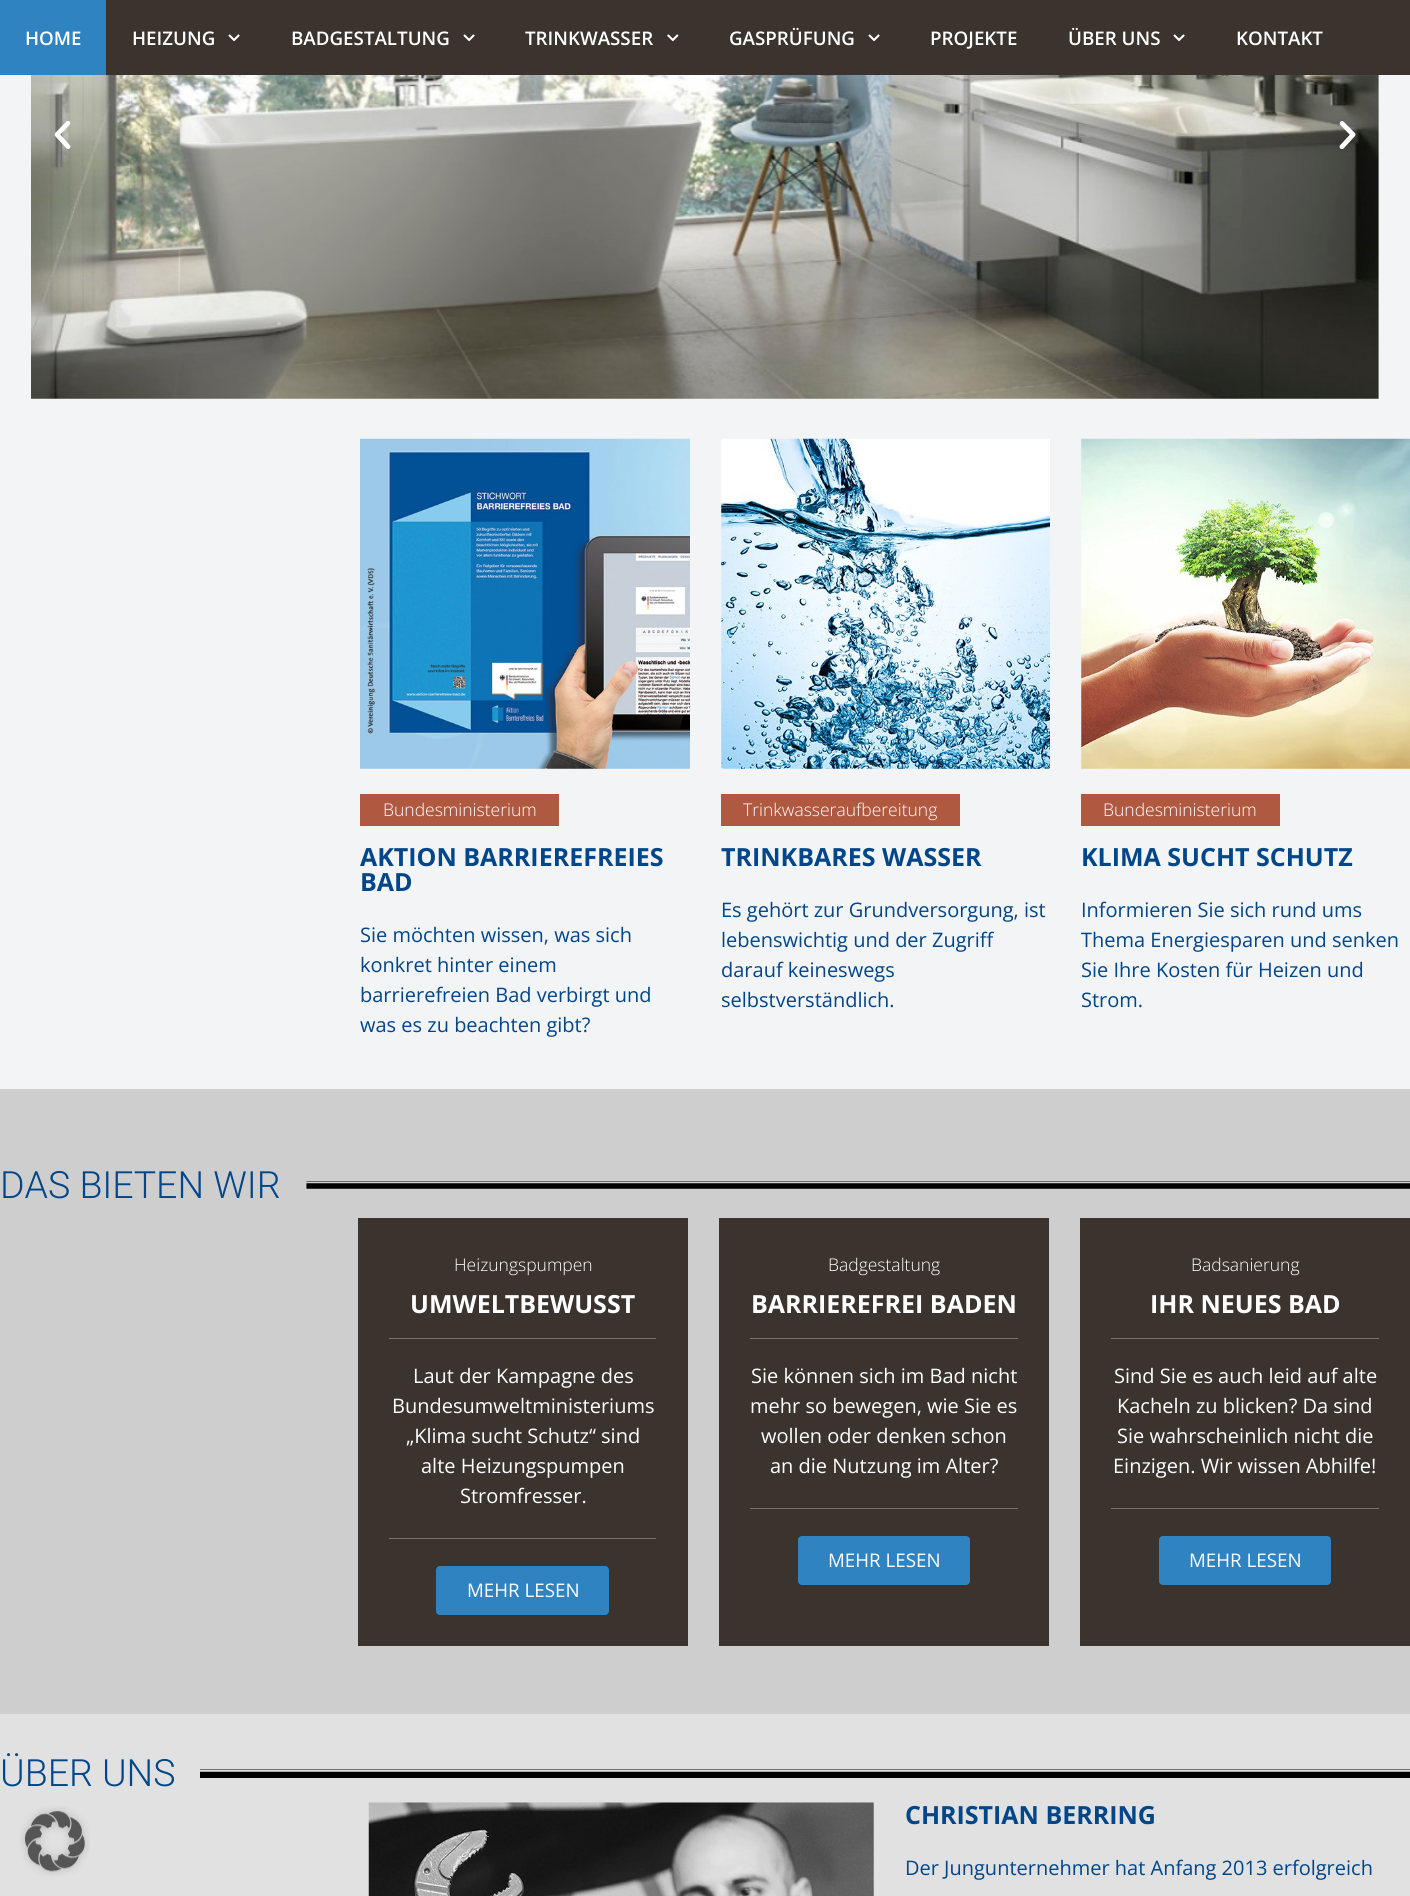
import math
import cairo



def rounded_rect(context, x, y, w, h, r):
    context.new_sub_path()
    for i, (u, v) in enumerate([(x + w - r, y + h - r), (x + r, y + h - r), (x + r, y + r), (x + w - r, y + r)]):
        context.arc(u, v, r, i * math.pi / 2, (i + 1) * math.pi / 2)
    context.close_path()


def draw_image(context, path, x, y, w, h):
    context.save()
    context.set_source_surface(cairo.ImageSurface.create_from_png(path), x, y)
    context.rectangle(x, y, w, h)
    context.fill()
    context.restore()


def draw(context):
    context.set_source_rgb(242 / 255, 244 / 255, 245 / 255)
    context.paint()
    context.set_source_rgb(59 / 255, 52 / 255, 46 / 255)
    context.rectangle(106, 0, 1304, 75)
    context.fill()
    context.set_source_rgb(46 / 255, 131 / 255, 192 / 255)
    context.rectangle(0, 0, 106, 75)
    context.fill()
    draw_image(context, "images/1.png", 228, 34, 12, 8)
    draw_image(context, "images/1.png", 463, 34, 12, 8)
    draw_image(context, "images/2.png", 667, 34, 12, 8)
    draw_image(context, "images/1.png", 868, 34, 12, 8)
    draw_image(context, "images/1.png", 1173, 34, 12, 8)
    draw_image(context, "images/3.png", 31, 75, 1348, 324)
    draw_image(context, "images/4.png", 54, 121, 17, 28)
    draw_image(context, "images/5.png", 1339, 121, 17, 28)
    draw_image(context, "images/6.png", 360, 438, 330, 331)
    context.set_source_rgb(175 / 255, 90 / 255, 64 / 255)
    context.rectangle(360, 794, 199, 32)
    context.fill()
    draw_image(context, "images/7.png", 721, 438, 329, 331)
    context.rectangle(721, 794, 239, 32)
    context.fill()
    draw_image(context, "images/8.png", 1081, 438, 329, 331)
    context.rectangle(1081, 794, 199, 32)
    context.fill()
    context.set_source_rgb(207 / 255, 206 / 255, 206 / 255)
    context.rectangle(0, 1089, 1410, 625)
    context.fill()
    draw_image(context, "images/9.png", 306, 1181, 1104, 8)
    context.set_source_rgb(59 / 255, 52 / 255, 46 / 255)
    context.rectangle(358, 1218, 330, 428)
    context.fill()
    context.set_source_rgb(118 / 255, 113 / 255, 109 / 255)
    context.rectangle(389, 1338, 267, 1)
    context.fill()
    context.rectangle(389, 1538, 267, 1)
    context.fill()
    context.set_source_rgb(46 / 255, 131 / 255, 192 / 255)
    rounded_rect(context, 436, 1566, 173, 49, 4)
    context.fill()
    context.set_source_rgb(59 / 255, 52 / 255, 46 / 255)
    context.rectangle(719, 1218, 330, 428)
    context.fill()
    context.set_source_rgb(118 / 255, 113 / 255, 109 / 255)
    context.rectangle(750, 1338, 268, 1)
    context.fill()
    context.rectangle(750, 1508, 268, 1)
    context.fill()
    context.set_source_rgb(46 / 255, 131 / 255, 192 / 255)
    rounded_rect(context, 798, 1536, 172, 49, 4)
    context.fill()
    context.set_source_rgb(59 / 255, 52 / 255, 46 / 255)
    context.rectangle(1080, 1218, 330, 428)
    context.fill()
    context.set_source_rgb(118 / 255, 113 / 255, 109 / 255)
    context.rectangle(1111, 1338, 268, 1)
    context.fill()
    context.rectangle(1111, 1508, 268, 1)
    context.fill()
    context.set_source_rgb(46 / 255, 131 / 255, 192 / 255)
    rounded_rect(context, 1159, 1536, 172, 49, 4)
    context.fill()
    context.set_source_rgb(225 / 255, 225 / 255, 226 / 255)
    context.rectangle(0, 1714, 1410, 182)
    context.fill()
    draw_image(context, "images/10.png", 200, 1769, 1210, 9)
    draw_image(context, "images/11.png", 368, 1802, 506, 94)
    draw_image(context, "images/12.png", 20, 1806, 70, 70)
    context.select_font_face("Open Sans SemiBold")
    context.set_font_size(18.75)
    context.set_source_rgb(1, 1, 1)
    context.move_to(25, 45)
    context.show_text("HOME")
    context.move_to(132, 45)
    context.show_text("HEIZUNG")
    context.move_to(291, 45)
    context.show_text("BADGESTALTUNG")
    context.move_to(525, 45)
    context.show_text("TRINKWASSER")
    context.move_to(729, 45)
    context.show_text("GASPRÜFUNG")
    context.move_to(930, 45)
    context.show_text("PROJEKTE")
    context.move_to(1068, 45)
    context.show_text("ÜBER UNS")
    context.move_to(1236, 45)
    context.show_text("KONTAKT")
    context.select_font_face("Open Sans Light")
    context.set_font_size(17.5)
    context.move_to(383, 816)
    context.show_text("Bundesministerium")
    context.select_font_face("Open Sans", cairo.FontSlant.NORMAL, cairo.FontWeight.BOLD)
    context.set_font_size(25)
    context.set_source_rgb(1 / 255, 70 / 255, 137 / 255)
    context.move_to(360, 866)
    context.show_text("AKTION BARRIEREFREIES")
    context.move_to(360, 891)
    context.show_text("BAD")
    context.select_font_face("Open Sans")
    context.set_font_size(20)
    context.move_to(360, 942)
    context.show_text("Sie möchten wissen, was sich")
    context.move_to(360, 972)
    context.show_text("konkret hinter einem")
    context.move_to(360, 1002)
    context.show_text("barrierefreien Bad verbirgt und")
    context.move_to(360, 1032)
    context.show_text("was es zu beachten gibt?")
    context.select_font_face("Open Sans Light")
    context.set_font_size(17.5)
    context.set_source_rgb(1, 1, 1)
    context.move_to(743, 816)
    context.show_text("Trinkwasseraufbereitung")
    context.select_font_face("Open Sans", cairo.FontSlant.NORMAL, cairo.FontWeight.BOLD)
    context.set_font_size(25)
    context.set_source_rgb(1 / 255, 70 / 255, 137 / 255)
    context.move_to(721, 866)
    context.show_text("TRINKBARES WASSER")
    context.select_font_face("Open Sans")
    context.set_font_size(20)
    context.move_to(721, 917)
    context.show_text("Es gehört zur Grundversorgung, ist")
    context.move_to(721, 947)
    context.show_text("lebenswichtig und der Zugriff")
    context.move_to(721, 977)
    context.show_text("darauf keineswegs")
    context.move_to(721, 1007)
    context.show_text("selbstverständlich.")
    context.select_font_face("Open Sans Light")
    context.set_font_size(17.5)
    context.set_source_rgb(1, 1, 1)
    context.move_to(1103, 816)
    context.show_text("Bundesministerium")
    context.select_font_face("Open Sans", cairo.FontSlant.NORMAL, cairo.FontWeight.BOLD)
    context.set_font_size(25)
    context.set_source_rgb(1 / 255, 70 / 255, 137 / 255)
    context.move_to(1081, 866)
    context.show_text("KLIMA SUCHT SCHUTZ")
    context.select_font_face("Open Sans")
    context.set_font_size(20)
    context.move_to(1081, 917)
    context.show_text("Informieren Sie sich rund ums")
    context.move_to(1081, 947)
    context.show_text("Thema Energiesparen und senken")
    context.move_to(1081, 977)
    context.show_text("Sie Ihre Kosten für Heizen und")
    context.move_to(1081, 1007)
    context.show_text("Strom.")
    context.select_font_face("Roboto Light")
    context.set_font_size(37.5)
    context.move_to(0, 1198)
    context.show_text("DAS BIETEN WIR")
    context.select_font_face("Open Sans Light")
    context.set_font_size(17.5)
    context.set_source_rgb(1, 1, 1)
    context.move_to(454, 1271)
    context.show_text("Heizungspumpen")
    context.select_font_face("Open Sans", cairo.FontSlant.NORMAL, cairo.FontWeight.BOLD)
    context.set_font_size(25)
    context.move_to(410, 1313)
    context.show_text("UMWELTBEWUSST")
    context.select_font_face("Open Sans")
    context.set_font_size(20)
    context.move_to(413, 1383)
    context.show_text("Laut der Kampagne des")
    context.move_to(392, 1413)
    context.show_text("Bundesumweltministeriums")
    context.move_to(406, 1443)
    context.show_text("„Klima sucht Schutz“ sind")
    context.move_to(421, 1473)
    context.show_text("alte Heizungspumpen")
    context.move_to(460, 1503)
    context.show_text("Stromfresser.")
    context.set_font_size(18.75)
    context.move_to(467, 1597)
    context.show_text("MEHR LESEN")
    context.select_font_face("Open Sans Light")
    context.set_font_size(17.5)
    context.move_to(828, 1271)
    context.show_text("Badgestaltung")
    context.select_font_face("Open Sans", cairo.FontSlant.NORMAL, cairo.FontWeight.BOLD)
    context.set_font_size(25)
    context.move_to(751, 1313)
    context.show_text("BARRIEREFREI BADEN")
    context.select_font_face("Open Sans")
    context.set_font_size(20)
    context.move_to(751, 1383)
    context.show_text("Sie können sich im Bad nicht")
    context.move_to(750, 1413)
    context.show_text("mehr so bewegen, wie Sie es")
    context.move_to(761, 1443)
    context.show_text("wollen oder denken schon")
    context.move_to(770, 1473)
    context.show_text("an die Nutzung im Alter?")
    context.set_font_size(18.75)
    context.move_to(828, 1567)
    context.show_text("MEHR LESEN")
    context.select_font_face("Open Sans Light")
    context.set_font_size(17.5)
    context.move_to(1191, 1271)
    context.show_text("Badsanierung")
    context.select_font_face("Open Sans", cairo.FontSlant.NORMAL, cairo.FontWeight.BOLD)
    context.set_font_size(25)
    context.move_to(1150, 1313)
    context.show_text("IHR NEUES BAD")
    context.select_font_face("Open Sans")
    context.set_font_size(20)
    context.move_to(1114, 1383)
    context.show_text("Sind Sie es auch leid auf alte")
    context.move_to(1117, 1413)
    context.show_text("Kacheln zu blicken? Da sind")
    context.move_to(1117, 1443)
    context.show_text("Sie wahrscheinlich nicht die")
    context.move_to(1113, 1473)
    context.show_text("Einzigen. Wir wissen Abhilfe!")
    context.set_font_size(18.75)
    context.move_to(1189, 1567)
    context.show_text("MEHR LESEN")
    context.select_font_face("Roboto Light")
    context.set_font_size(37.5)
    context.set_source_rgb(1 / 255, 70 / 255, 137 / 255)
    context.move_to(0, 1786)
    context.show_text("ÜBER UNS")
    context.select_font_face("Open Sans", cairo.FontSlant.NORMAL, cairo.FontWeight.BOLD)
    context.set_font_size(25)
    context.move_to(905, 1824)
    context.show_text("CHRISTIAN BERRING")
    context.select_font_face("Open Sans")
    context.set_font_size(20)
    context.move_to(905, 1875)
    context.show_text("Der Jungunternehmer hat Anfang 2013 erfolgreich")


surface = cairo.ImageSurface(cairo.Format.RGB24, 1410, 1896)
context = cairo.Context(surface)
options = cairo.FontOptions()
options.set_hint_metrics(cairo.HintMetrics.OFF)
options.set_hint_style(cairo.HintStyle.NONE)
context.set_font_options(options)
context.set_miter_limit(4)
draw(context)
surface.write_to_png("out.png")
